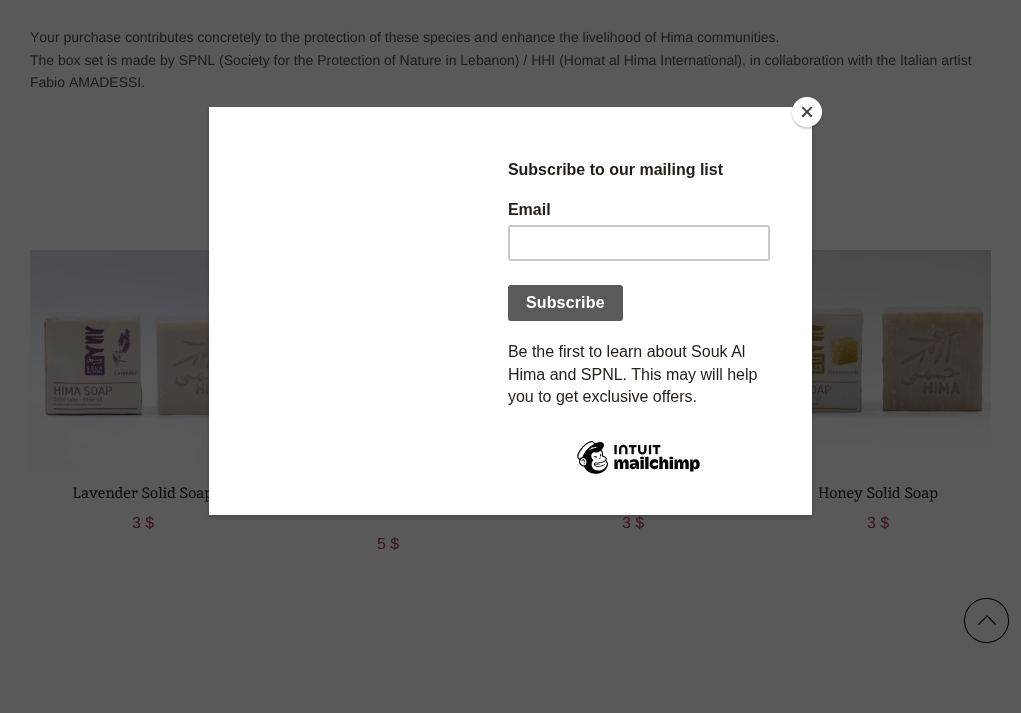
import math
import cairo



def rounded_rect(context, x, y, w, h, r):
    context.new_sub_path()
    for i, (u, v) in enumerate([(x + w - r, y + h - r), (x + r, y + h - r), (x + r, y + r), (x + w - r, y + r)]):
        context.arc(u, v, r, i * math.pi / 2, (i + 1) * math.pi / 2)
    context.close_path()


def draw_shadow(context, x, y, w, h, r, blur, alpha):
    context.push_group_with_content(cairo.Content.ALPHA)
    context.set_operator(cairo.Operator.SOURCE)
    for i in range(15, -16, -2):
        e = blur * i / 6
        if min(w, h) + 2 * e > 0:
            context.set_source_rgba(0, 0, 0, alpha * math.erfc((i - 1) / 8.5) / 2)
            rounded_rect(context, x - e, y - e, w + 2 * e, h + 2 * e, max(0, min(r + e + blur * .6, min(w, h) / 2 + e)))
            context.fill()
    context.mask(context.pop_group())


def draw_image(context, path, x, y, w, h):
    context.save()
    context.set_source_surface(cairo.ImageSurface.create_from_png(path), x, y)
    context.rectangle(x, y, w, h)
    context.fill()
    context.restore()


def draw(context):
    context.set_source_rgb(89 / 255, 89 / 255, 89 / 255)
    context.paint()
    draw_image(context, "images/1.png", 30, 250, 179, 222)
    draw_image(context, "images/2.png", 812, 250, 179, 198)
    context.set_source_rgb(0, 0, 0)
    draw_shadow(context, 209, 109, 603, 408, 0, 2, 0.2)
    context.arc(986.5, 620.5, 22, 0, 2 * math.pi)
    context.set_source_rgb(0, 0, 0)
    context.set_line_width(1)
    context.stroke()
    draw_image(context, "images/4.png", 978, 615, 18, 10)
    context.select_font_face("Liberation Sans")
    context.set_font_size(14)
    context.set_source_rgb(27 / 255, 27 / 255, 27 / 255)
    context.move_to(30, 42)
    context.show_text("Your purchase contributes concretely to the protection of these species and enhance the livelihood of Hima communities.")
    context.move_to(30, 65)
    context.show_text("The box set is made by SPNL (Society for the Protection of Nature in Lebanon) / HHI (Homat al Hima International), in collaboration with the Italian artist")
    context.move_to(30, 87)
    context.show_text("Fabio AMADESSI.")
    context.select_font_face("Inika")
    context.set_font_size(15)
    context.set_source_rgb(9 / 255, 9 / 255, 9 / 255)
    context.move_to(72, 498)
    context.show_text("Lavender Solid Soap")
    context.select_font_face("Liberation Sans")
    context.set_font_size(16)
    context.set_source_rgb(62 / 255, 15 / 255, 36 / 255)
    context.move_to(132, 528)
    context.show_text("3 $")
    context.move_to(622, 528)
    context.show_text("3 $")
    context.select_font_face("Inika")
    context.set_font_size(15)
    context.set_source_rgb(9 / 255, 9 / 255, 9 / 255)
    context.move_to(818, 498)
    context.show_text("Honey Solid Soap")
    context.select_font_face("Liberation Sans")
    context.set_font_size(16)
    context.set_source_rgb(62 / 255, 15 / 255, 36 / 255)
    context.move_to(867, 528)
    context.show_text("3 $")
    context.move_to(377, 549)
    context.show_text("5 $")
    draw_image(context, "images/3.png", 209, 107, 603, 408)
    context.set_source_rgb(0, 0, 0)
    draw_shadow(context, 792, 99, 30, 30, 15, 1, 0.2)
    context.set_source_rgb(1, 1, 1)
    context.arc(807, 112, 15, 0, 2 * math.pi)
    context.fill()
    context.set_source_rgb(65 / 255, 65 / 255, 65 / 255)
    context.new_path()
    context.move_to(811, 106.5)
    context.line_to(812.5, 107.5)
    context.line_to(803, 117.5)
    context.line_to(801.5, 116)
    context.close_path()
    context.fill()
    context.new_path()
    context.move_to(801.5, 107.5)
    context.line_to(803, 106.5)
    context.line_to(812.5, 116)
    context.line_to(811, 117.5)
    context.close_path()
    context.fill()


surface = cairo.ImageSurface(cairo.Format.RGB24, 1021, 713)
context = cairo.Context(surface)
options = cairo.FontOptions()
options.set_hint_metrics(cairo.HintMetrics.OFF)
options.set_hint_style(cairo.HintStyle.NONE)
context.set_font_options(options)
context.set_miter_limit(4)
draw(context)
surface.write_to_png("out.png")
